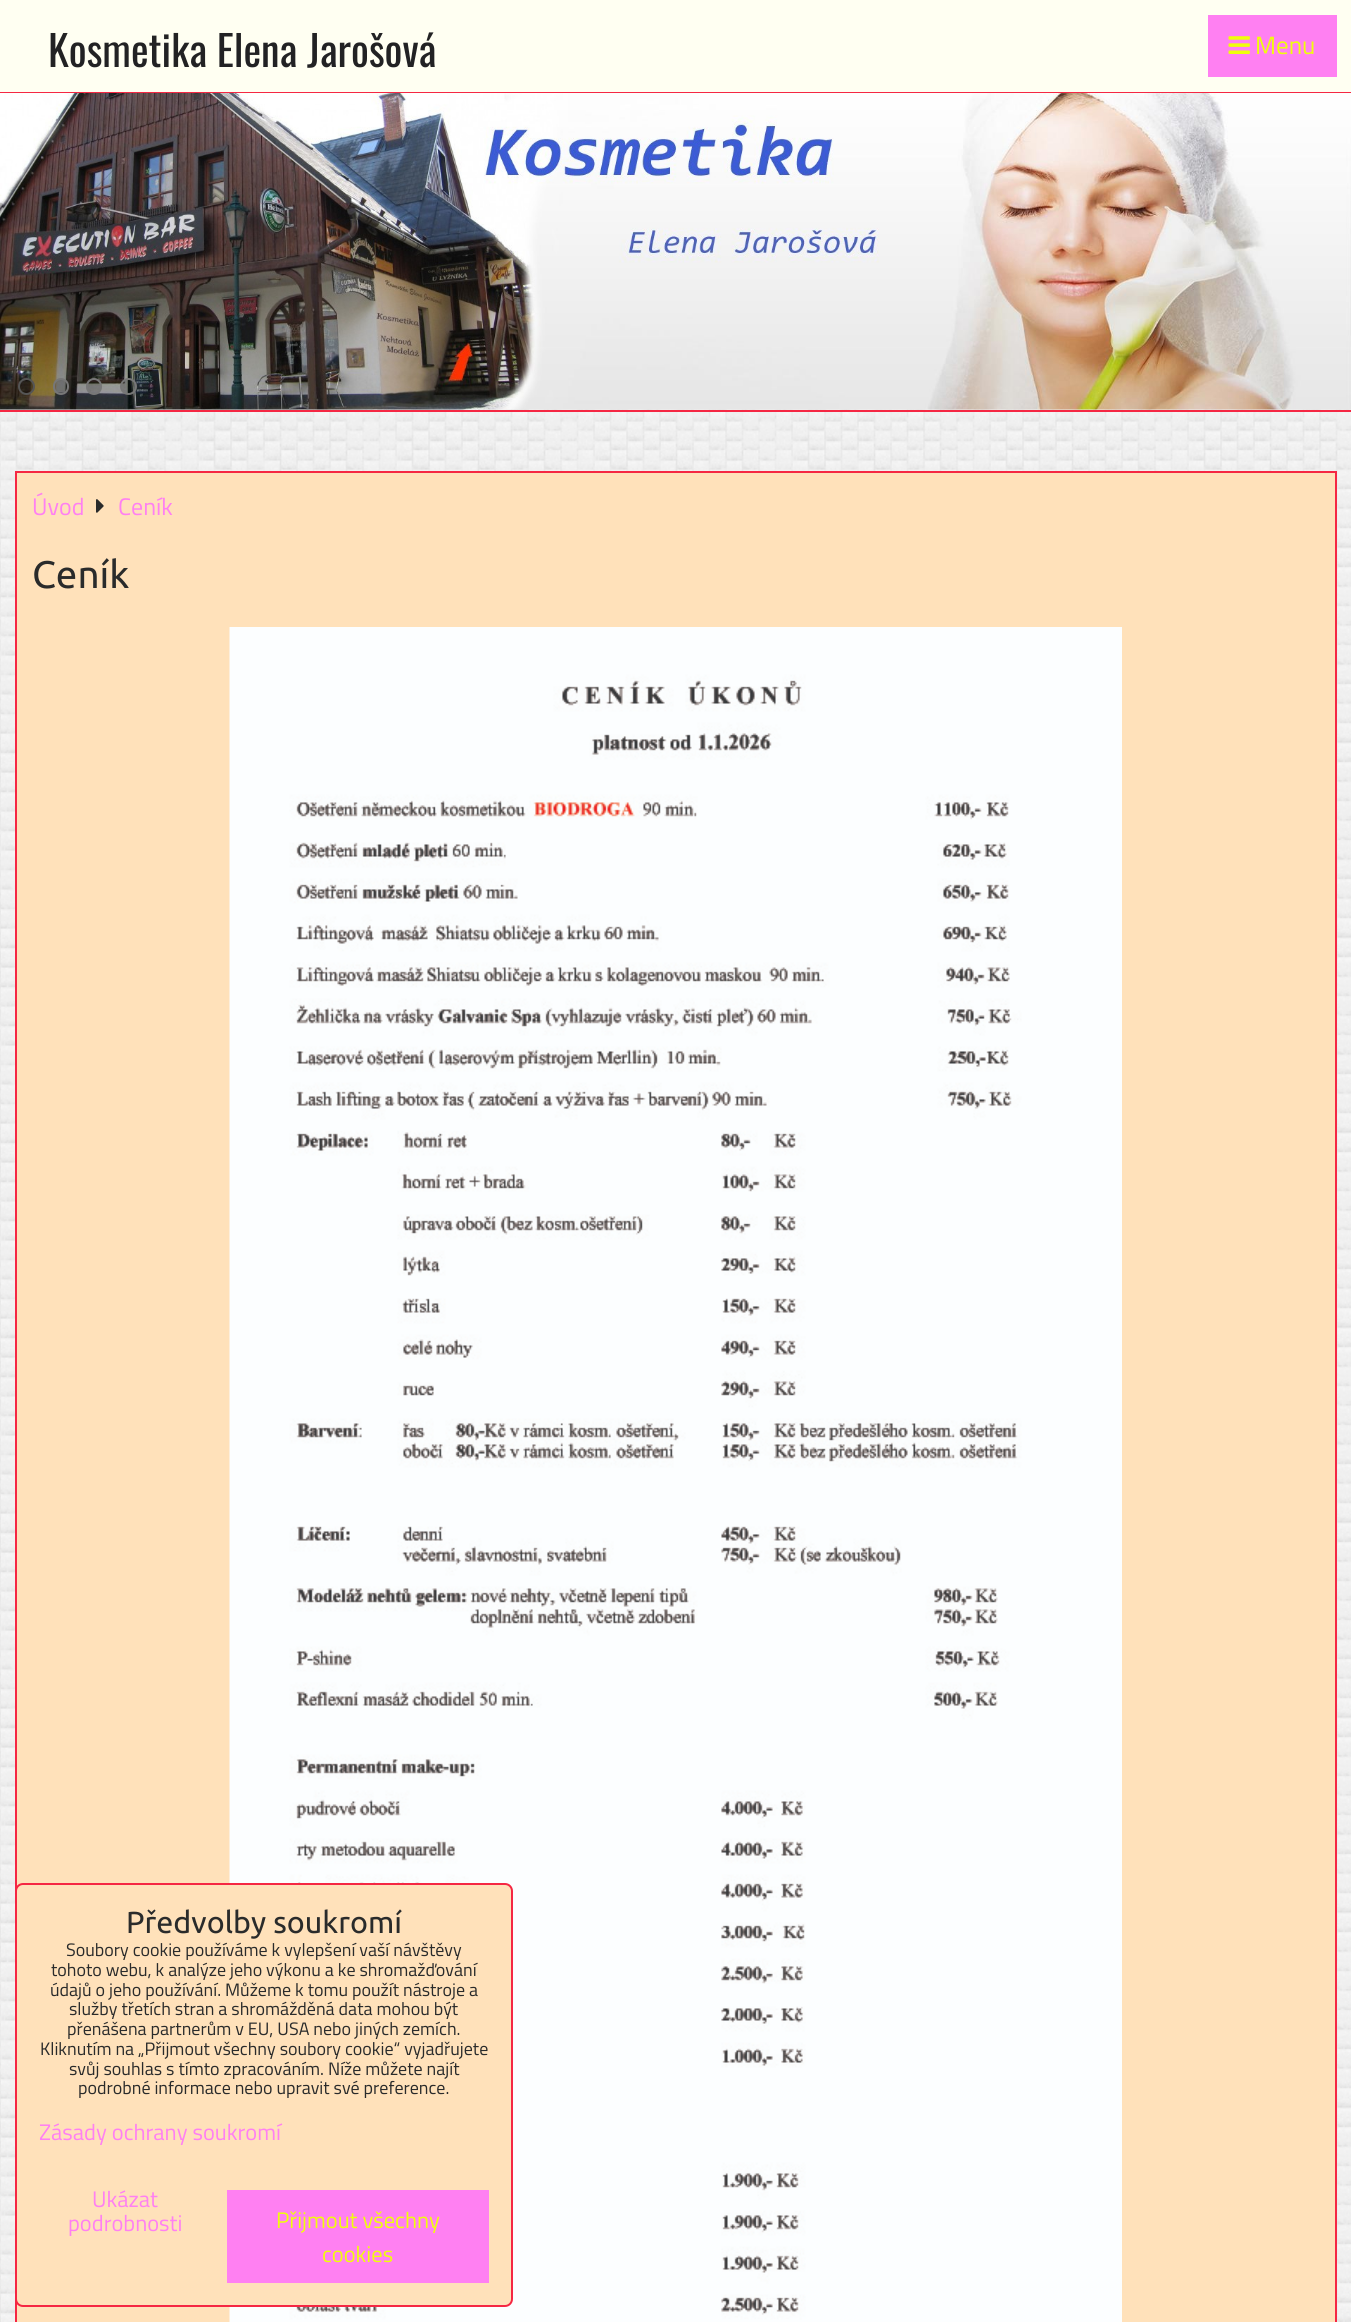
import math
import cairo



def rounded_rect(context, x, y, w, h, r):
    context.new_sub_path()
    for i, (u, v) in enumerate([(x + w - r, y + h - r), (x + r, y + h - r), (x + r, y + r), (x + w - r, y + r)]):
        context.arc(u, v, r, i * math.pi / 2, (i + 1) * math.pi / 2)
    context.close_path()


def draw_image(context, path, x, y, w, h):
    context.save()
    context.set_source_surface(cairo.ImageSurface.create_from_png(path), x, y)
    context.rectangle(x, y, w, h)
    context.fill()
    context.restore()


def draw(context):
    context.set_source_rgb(1, 1, 1)
    context.paint()
    draw_image(context, "images/1.png", 0, 409, 1351, 1913)
    context.set_source_rgb(1, 1, 242 / 255)
    context.rectangle(0, 0, 1351, 92)
    context.fill()
    context.set_source_rgb(1, 128 / 255, 242 / 255)
    context.rectangle(1208, 15, 129, 62)
    context.fill()
    draw_image(context, "images/2.png", 1228, 36, 22, 18)
    context.set_source_rgb(245 / 255, 39 / 255, 67 / 255)
    context.rectangle(0, 92, 1351, 1)
    context.fill()
    context.rectangle(0, 410, 1351, 2)
    context.fill()
    draw_image(context, "images/3.png", 0, 93, 1351, 317)
    context.set_source_rgba(0, 0, 0, 0.4)
    context.arc(26.5, 386.5, 7.5, 0, 2 * math.pi)
    context.fill_preserve()
    context.set_source_rgb(85 / 255, 85 / 255, 85 / 255)
    context.stroke()
    context.set_source_rgba(0, 0, 0, 0.2)
    rounded_rect(context, 54, 379, 14, 15, 7)
    context.fill_preserve()
    context.set_source_rgb(119 / 255, 119 / 255, 119 / 255)
    context.stroke()
    context.set_source_rgba(0, 0, 0, 0.2)
    rounded_rect(context, 87, 379, 14, 15, 7)
    context.fill_preserve()
    context.set_source_rgb(119 / 255, 119 / 255, 119 / 255)
    context.stroke()
    context.set_source_rgba(0, 0, 0, 0.2)
    context.arc(128.5, 386.5, 7.5, 0, 2 * math.pi)
    context.fill_preserve()
    context.set_source_rgb(119 / 255, 119 / 255, 119 / 255)
    context.stroke()
    context.set_source_rgb(1, 225 / 255, 186 / 255)
    context.rectangle(16, 472, 1320, 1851)
    context.fill_preserve()
    context.set_source_rgb(245 / 255, 39 / 255, 67 / 255)
    context.stroke()
    draw_image(context, "images/4.png", 96, 499, 8, 14)
    draw_image(context, "images/5.png", 229, 627, 893, 1695)
    context.set_source_rgb(1, 225 / 255, 186 / 255)
    rounded_rect(context, 16, 1884, 496, 422, 7)
    context.fill_preserve()
    context.set_source_rgb(245 / 255, 39 / 255, 67 / 255)
    context.stroke()
    context.set_source_rgb(1, 128 / 255, 242 / 255)
    context.rectangle(227, 2190, 262, 93)
    context.fill()
    context.select_font_face("Oswald")
    context.set_font_size(42)
    context.set_source_rgb(34 / 255, 34 / 255, 36 / 255)
    context.move_to(48, 67)
    context.show_text("Kosmetika Elena Jarošová")
    context.select_font_face("Titillium Web")
    context.set_font_size(25)
    context.set_source_rgb(239 / 255, 1, 10 / 255)
    context.move_to(1255, 54)
    context.show_text("Menu")
    context.set_font_size(24)
    context.set_source_rgb(1, 128 / 255, 242 / 255)
    context.move_to(32, 515)
    context.show_text("Úvod")
    context.move_to(118, 515)
    context.show_text("Ceník")
    context.select_font_face("Ubuntu")
    context.set_font_size(38.5)
    context.set_source_rgb(42 / 255, 43 / 255, 43 / 255)
    context.move_to(32, 588)
    context.show_text("Ceník")
    context.set_font_size(30.5)
    context.move_to(126, 1933)
    context.show_text("Předvolby soukromí")
    context.select_font_face("Titillium Web")
    context.set_font_size(18)
    context.move_to(66, 1956)
    context.show_text("Soubory cookie používáme k vylepšení vaší návštěvy")
    context.move_to(51, 1976)
    context.show_text("tohoto webu, k analýze jeho výkonu a ke shromažďování")
    context.move_to(50, 1996)
    context.show_text("údajů o jeho používání. Můžeme k tomu použít nástroje a")
    context.move_to(69, 2015)
    context.show_text("služby třetích stran a shromážděná data mohou být")
    context.move_to(67, 2035)
    context.show_text("přenášena partnerům v EU, USA nebo jiných zemích.")
    context.move_to(40, 2055)
    context.show_text("Kliknutím na „Přijmout všechny soubory cookie“ vyjadřujete")
    context.move_to(69, 2075)
    context.show_text("svůj souhlas s tímto zpracováním. Níže můžete najít")
    context.move_to(78, 2094)
    context.show_text("podrobné informace nebo upravit své preference.")
    context.set_font_size(22.5)
    context.set_source_rgb(1, 128 / 255, 242 / 255)
    context.move_to(39, 2140)
    context.show_text("Zásady ochrany soukromí")
    context.move_to(92, 2207)
    context.show_text("Ukázat")
    context.move_to(68, 2231)
    context.show_text("podrobnosti")
    context.set_source_rgb(239 / 255, 1, 10 / 255)
    context.move_to(276, 2228)
    context.show_text("Přijmout všechny")
    context.move_to(322, 2262)
    context.show_text("cookies")


surface = cairo.ImageSurface(cairo.Format.RGB24, 1351, 2322)
context = cairo.Context(surface)
options = cairo.FontOptions()
options.set_hint_metrics(cairo.HintMetrics.OFF)
options.set_hint_style(cairo.HintStyle.NONE)
context.set_font_options(options)
context.set_miter_limit(4)
draw(context)
surface.write_to_png("out.png")
